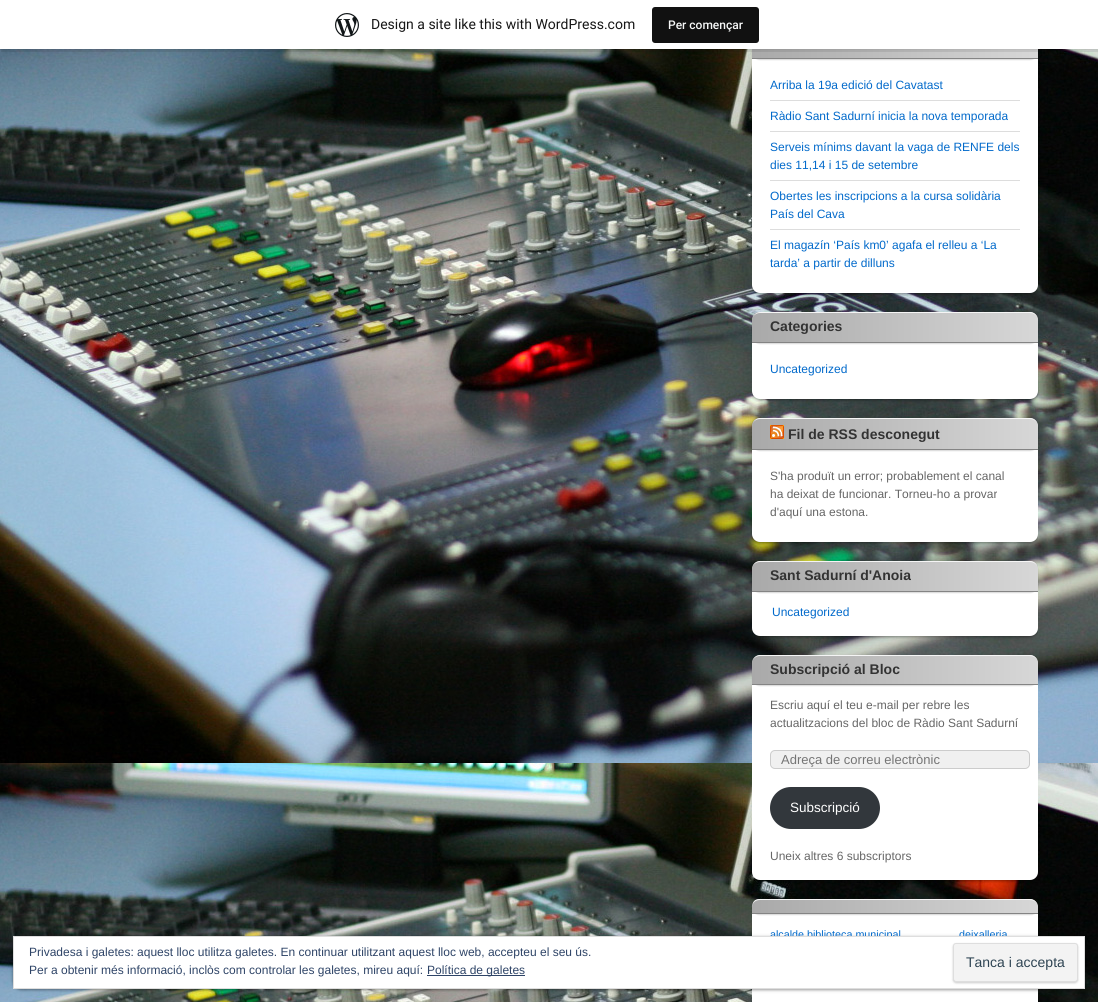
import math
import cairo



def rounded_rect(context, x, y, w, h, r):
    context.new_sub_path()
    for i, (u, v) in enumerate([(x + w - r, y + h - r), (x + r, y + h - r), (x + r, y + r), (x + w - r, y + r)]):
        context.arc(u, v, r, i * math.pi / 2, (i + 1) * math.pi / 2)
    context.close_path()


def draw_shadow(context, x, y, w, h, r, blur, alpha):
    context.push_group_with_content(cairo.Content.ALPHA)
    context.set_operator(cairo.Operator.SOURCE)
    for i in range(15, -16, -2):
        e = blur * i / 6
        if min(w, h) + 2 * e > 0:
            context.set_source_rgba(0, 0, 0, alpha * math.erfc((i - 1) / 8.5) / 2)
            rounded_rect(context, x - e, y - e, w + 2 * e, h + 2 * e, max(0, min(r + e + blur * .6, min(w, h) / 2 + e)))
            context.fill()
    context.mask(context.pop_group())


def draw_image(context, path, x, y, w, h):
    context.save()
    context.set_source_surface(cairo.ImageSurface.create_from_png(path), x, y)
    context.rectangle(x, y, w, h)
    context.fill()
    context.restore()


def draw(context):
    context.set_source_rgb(1, 1, 1)
    context.paint()
    draw_image(context, "images/1.png", 0, 49, 1098, 953)
    context.save()
    context.rectangle(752, 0, 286, 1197)
    context.clip()
    context.set_source_rgb(0, 0, 0)
    draw_shadow(context, 752, 31, 286, 263, 8, 1.5, 0.4)
    context.restore()
    context.set_source_rgb(1, 1, 1)
    rounded_rect(context, 752, 30, 286, 263, 8)
    context.fill()
    context.set_source_rgb(0, 0, 0)
    draw_shadow(context, 752, 30, 286, 30, 8, 0.5, 0.15)
    gradient = cairo.LinearGradient(1038, 44, 752, 44)
    gradient.add_color_stop_rgba(0, 215 / 255, 215 / 255, 215 / 255, 1)
    gradient.add_color_stop_rgba(1, 169 / 255, 169 / 255, 169 / 255, 1)
    context.set_source(gradient)
    context.rectangle(752, 49, 286, 9)
    context.fill()
    context.set_source_rgb(0, 0, 0)
    draw_shadow(context, 0, 1, 1098, 49, 0, 1, 0.05)
    context.set_source_rgba(0, 0, 0, 0.08)
    context.new_path()
    context.move_to(1, 49)
    context.line_to(1, 52)
    context.line_to(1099, 52)
    context.line_to(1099, 3)
    context.line_to(1098, 3)
    context.line_to(1098, 49)
    context.close_path()
    context.fill()
    context.set_source_rgb(1, 1, 1)
    context.rectangle(0, 0, 1098, 49)
    context.fill()
    draw_image(context, "images/2.png", 335, 13, 24, 24)
    context.set_source_rgb(17 / 255, 17 / 255, 17 / 255)
    rounded_rect(context, 652, 7, 107, 36, 3)
    context.fill()
    context.set_source_rgb(132 / 255, 132 / 255, 132 / 255)
    context.rectangle(752, 58, 286, 1)
    context.fill()
    context.set_source_rgb(221 / 255, 221 / 255, 221 / 255)
    context.rectangle(770, 100, 250, 1)
    context.fill()
    context.rectangle(770, 131, 250, 1)
    context.fill()
    context.rectangle(770, 180, 250, 1)
    context.fill()
    context.rectangle(770, 229, 250, 1)
    context.fill()
    context.save()
    context.rectangle(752, 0, 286, 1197)
    context.clip()
    context.set_source_rgb(0, 0, 0)
    draw_shadow(context, 752, 314, 286, 86, 8, 1.5, 0.4)
    context.restore()
    context.set_source_rgb(1, 1, 1)
    rounded_rect(context, 752, 313, 286, 86, 8)
    context.fill()
    context.set_source_rgb(0, 0, 0)
    draw_shadow(context, 752, 313, 286, 31, 8, 0.5, 0.15)
    gradient = cairo.LinearGradient(1038, 328, 752, 328)
    gradient.add_color_stop_rgba(0, 215 / 255, 215 / 255, 215 / 255, 1)
    gradient.add_color_stop_rgba(1, 169 / 255, 169 / 255, 169 / 255, 1)
    context.set_source(gradient)
    context.new_path()
    context.move_to(760, 312)
    context.line_to(1030, 312)
    context.curve_to(1034.5, 312, 1038, 315.5, 1038, 320)
    context.line_to(1038, 343)
    context.line_to(752, 343)
    context.line_to(752, 320)
    context.curve_to(752, 315.5, 755.5, 312, 760, 312)
    context.close_path()
    context.fill()
    context.set_source_rgb(245 / 255, 245 / 255, 245 / 255)
    context.new_path()
    context.move_to(760, 312)
    context.curve_to(756, 312, 752, 316, 752, 320)
    context.curve_to(752, 316, 756, 313, 760, 313)
    context.line_to(1030, 313)
    context.curve_to(1034, 313, 1038, 316, 1038, 320)
    context.curve_to(1038, 316, 1034, 312, 1030, 312)
    context.close_path()
    context.fill()
    context.set_source_rgb(132 / 255, 132 / 255, 132 / 255)
    context.rectangle(752, 342, 286, 1)
    context.fill()
    context.save()
    context.rectangle(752, 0, 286, 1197)
    context.clip()
    context.set_source_rgb(0, 0, 0)
    draw_shadow(context, 752, 420, 286, 123, 8, 1.5, 0.4)
    context.restore()
    context.set_source_rgb(1, 1, 1)
    rounded_rect(context, 752, 419, 286, 123, 8)
    context.fill()
    context.set_source_rgb(0, 0, 0)
    draw_shadow(context, 752, 419, 286, 32, 8, 0.5, 0.15)
    gradient = cairo.LinearGradient(1038, 434, 752, 434)
    gradient.add_color_stop_rgba(0, 215 / 255, 215 / 255, 215 / 255, 1)
    gradient.add_color_stop_rgba(1, 169 / 255, 169 / 255, 169 / 255, 1)
    context.set_source(gradient)
    context.new_path()
    context.move_to(760, 418)
    context.line_to(1030, 418)
    context.curve_to(1034.5, 418, 1038, 421.5, 1038, 426)
    context.line_to(1038, 450)
    context.line_to(752, 450)
    context.line_to(752, 426)
    context.curve_to(752, 421.5, 755.5, 418, 760, 418)
    context.close_path()
    context.fill()
    context.set_source_rgb(245 / 255, 245 / 255, 245 / 255)
    context.new_path()
    context.move_to(760, 418)
    context.curve_to(756, 418, 752, 422, 752, 426)
    context.curve_to(752, 422, 756, 419, 760, 419)
    context.line_to(1030, 419)
    context.curve_to(1034, 419, 1038, 422, 1038, 426)
    context.curve_to(1038, 422, 1034, 418, 1030, 418)
    context.close_path()
    context.fill()
    context.set_source_rgb(132 / 255, 132 / 255, 132 / 255)
    context.rectangle(752, 449, 286, 1)
    context.fill()
    context.set_source_rgb(1, 165 / 255, 0)
    context.rectangle(770, 425, 14, 14)
    context.fill()
    draw_image(context, "images/3.png", 770, 425, 14, 14)
    context.save()
    context.rectangle(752, 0, 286, 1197)
    context.clip()
    context.set_source_rgb(0, 0, 0)
    draw_shadow(context, 752, 563, 286, 74, 8, 1.5, 0.4)
    context.restore()
    context.set_source_rgb(1, 1, 1)
    rounded_rect(context, 752, 562, 286, 74, 8)
    context.fill()
    context.set_source_rgb(0, 0, 0)
    draw_shadow(context, 752, 562, 286, 31, 8, 0.5, 0.15)
    gradient = cairo.LinearGradient(1038, 577, 752, 577)
    gradient.add_color_stop_rgba(0, 215 / 255, 215 / 255, 215 / 255, 1)
    gradient.add_color_stop_rgba(1, 169 / 255, 169 / 255, 169 / 255, 1)
    context.set_source(gradient)
    context.new_path()
    context.move_to(760, 561)
    context.line_to(1030, 561)
    context.curve_to(1034.5, 561, 1038, 564.5, 1038, 569)
    context.line_to(1038, 592)
    context.line_to(752, 592)
    context.line_to(752, 569)
    context.curve_to(752, 564.5, 755.5, 561, 760, 561)
    context.close_path()
    context.fill()
    context.set_source_rgb(245 / 255, 245 / 255, 245 / 255)
    context.new_path()
    context.move_to(760, 561)
    context.curve_to(756, 561, 752, 565, 752, 569)
    context.curve_to(752, 565, 756, 562, 760, 562)
    context.line_to(1030, 562)
    context.curve_to(1034, 562, 1038, 565, 1038, 569)
    context.curve_to(1038, 565, 1034, 561, 1030, 561)
    context.close_path()
    context.fill()
    context.set_source_rgb(132 / 255, 132 / 255, 132 / 255)
    context.rectangle(752, 591, 286, 1)
    context.fill()
    context.save()
    context.rectangle(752, 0, 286, 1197)
    context.clip()
    context.set_source_rgb(0, 0, 0)
    draw_shadow(context, 752, 657, 286, 224, 8, 1.5, 0.4)
    context.restore()
    context.set_source_rgb(1, 1, 1)
    rounded_rect(context, 752, 656, 286, 224, 8)
    context.fill()
    context.set_source_rgb(0, 0, 0)
    draw_shadow(context, 752, 656, 286, 30, 8, 0.5, 0.15)
    gradient = cairo.LinearGradient(1038, 670, 752, 670)
    gradient.add_color_stop_rgba(0, 215 / 255, 215 / 255, 215 / 255, 1)
    gradient.add_color_stop_rgba(1, 169 / 255, 169 / 255, 169 / 255, 1)
    context.set_source(gradient)
    context.new_path()
    context.move_to(760, 655)
    context.line_to(1030, 655)
    context.curve_to(1034.5, 655, 1038, 658.5, 1038, 663)
    context.line_to(1038, 685)
    context.line_to(752, 685)
    context.line_to(752, 663)
    context.curve_to(752, 658.5, 755.5, 655, 760, 655)
    context.close_path()
    context.fill()
    context.set_source_rgb(245 / 255, 245 / 255, 245 / 255)
    context.new_path()
    context.move_to(760, 655)
    context.curve_to(756, 655, 752, 659, 752, 663)
    context.curve_to(752, 659, 756, 656, 760, 656)
    context.line_to(1030, 656)
    context.curve_to(1034, 656, 1038, 659, 1038, 663)
    context.curve_to(1038, 659, 1034, 655, 1030, 655)
    context.close_path()
    context.fill()
    context.set_source_rgb(132 / 255, 132 / 255, 132 / 255)
    context.rectangle(752, 684, 286, 1)
    context.fill()
    context.set_source_rgb(240 / 255, 240 / 255, 240 / 255)
    rounded_rect(context, 770.5, 750.5, 259, 18, 4.5)
    context.fill_preserve()
    context.set_source_rgb(204 / 255, 204 / 255, 204 / 255)
    context.set_line_width(1)
    context.stroke()
    context.set_source_rgb(50 / 255, 55 / 255, 60 / 255)
    rounded_rect(context, 770, 787, 110, 42, 21)
    context.fill()
    context.save()
    context.rectangle(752, 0, 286, 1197)
    context.clip()
    context.set_source_rgb(0, 0, 0)
    draw_shadow(context, 752, 901, 286, 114, 8, 1.5, 0.4)
    context.restore()
    context.set_source_rgb(1, 1, 1)
    rounded_rect(context, 752, 900, 286, 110, 8)
    context.fill()
    context.set_source_rgb(0, 0, 0)
    draw_shadow(context, 752, 900, 286, 15, 8, 0.5, 0.15)
    gradient = cairo.LinearGradient(1038, 907, 752, 907)
    gradient.add_color_stop_rgba(0, 215 / 255, 215 / 255, 215 / 255, 1)
    gradient.add_color_stop_rgba(1, 169 / 255, 169 / 255, 169 / 255, 1)
    context.set_source(gradient)
    context.new_path()
    context.move_to(760, 899)
    context.line_to(1030, 899)
    context.curve_to(1034.5, 899, 1038, 902.5, 1038, 907)
    context.line_to(1038, 914)
    context.line_to(752, 914)
    context.line_to(752, 907)
    context.curve_to(752, 902.5, 755.5, 899, 760, 899)
    context.close_path()
    context.fill()
    context.set_source_rgb(245 / 255, 245 / 255, 245 / 255)
    context.new_path()
    context.move_to(760, 899)
    context.curve_to(754, 899, 753, 902, 752, 906)
    context.curve_to(753, 903, 755, 900, 760, 900)
    context.line_to(1030, 900)
    context.curve_to(1034, 900, 1038, 903, 1038, 906)
    context.curve_to(1038, 903, 1034, 899, 1030, 899)
    context.close_path()
    context.fill()
    context.set_source_rgb(132 / 255, 132 / 255, 132 / 255)
    context.set_fill_rule(cairo.FillRule.EVEN_ODD)
    context.new_path()
    context.move_to(752, 909)
    context.line_to(752, 906)
    context.line_to(752, 913)
    context.close_path()
    context.move_to(1038, 914)
    context.line_to(1038, 913)
    context.line_to(752, 913)
    context.line_to(752, 914)
    context.close_path()
    context.fill()
    context.set_source_rgb(0, 0, 0)
    draw_shadow(context, 13, 937, 1072, 53, 8, 1.5, 0.4)
    context.select_font_face("Roboto")
    context.set_font_size(14)
    context.set_source_rgb(23 / 255, 23 / 255, 23 / 255)
    context.move_to(371, 29)
    context.show_text("Design a site like this with WordPress.com")
    context.select_font_face("Roboto Medium")
    context.set_font_size(12)
    context.set_source_rgb(246 / 255, 247 / 255, 247 / 255)
    context.move_to(668, 29)
    context.show_text("Per començar")
    context.select_font_face("Liberation Sans")
    context.set_source_rgb(2 / 255, 106 / 255, 203 / 255)
    context.move_to(770, 89)
    context.show_text("Arriba la 19a edició del Cavatast")
    context.move_to(770, 120)
    context.show_text("Ràdio Sant Sadurní inicia la nova temporada")
    context.move_to(770, 151)
    context.show_text("Serveis mínims davant la vaga de RENFE dels")
    context.move_to(770, 169)
    context.show_text("dies 11,14 i 15 de setembre")
    context.move_to(770, 200)
    context.show_text("Obertes les inscripcions a la cursa solidària")
    context.move_to(770, 218)
    context.show_text("País del Cava")
    context.move_to(770, 249)
    context.show_text("El magazín ‘País km0’ agafa el relleu a ‘La")
    context.move_to(770, 267)
    context.show_text("tarda’ a partir de dilluns")
    context.select_font_face("Liberation Sans", cairo.FontSlant.NORMAL, cairo.FontWeight.BOLD)
    context.set_font_size(14)
    context.set_source_rgb(51 / 255, 51 / 255, 51 / 255)
    context.move_to(770, 331)
    context.show_text("Categories")
    context.select_font_face("Liberation Sans")
    context.set_font_size(12)
    context.set_source_rgb(2 / 255, 106 / 255, 203 / 255)
    context.move_to(770, 373)
    context.show_text("Uncategorized")
    context.select_font_face("Liberation Sans", cairo.FontSlant.NORMAL, cairo.FontWeight.BOLD)
    context.set_font_size(14)
    context.set_source_rgb(51 / 255, 51 / 255, 51 / 255)
    context.move_to(788, 439)
    context.show_text("Fil de RSS desconegut")
    context.select_font_face("Liberation Sans")
    context.set_font_size(12)
    context.set_source_rgb(102 / 255, 102 / 255, 102 / 255)
    context.move_to(770, 480)
    context.show_text("S'ha produït un error; probablement el canal")
    context.move_to(770, 498)
    context.show_text("ha deixat de funcionar. Torneu-ho a provar")
    context.move_to(770, 516)
    context.show_text("d'aquí una estona.")
    context.select_font_face("Liberation Sans", cairo.FontSlant.NORMAL, cairo.FontWeight.BOLD)
    context.set_font_size(14)
    context.set_source_rgb(51 / 255, 51 / 255, 51 / 255)
    context.move_to(770, 580)
    context.show_text("Sant Sadurní d'Anoia")
    context.select_font_face("Liberation Sans")
    context.set_font_size(12)
    context.set_source_rgb(2 / 255, 106 / 255, 203 / 255)
    context.move_to(772, 616)
    context.show_text("Uncategorized")
    context.select_font_face("Liberation Sans", cairo.FontSlant.NORMAL, cairo.FontWeight.BOLD)
    context.set_font_size(14)
    context.set_source_rgb(51 / 255, 51 / 255, 51 / 255)
    context.move_to(770, 674)
    context.show_text("Subscripció al Bloc")
    context.select_font_face("Liberation Sans")
    context.set_font_size(12)
    context.set_source_rgb(102 / 255, 102 / 255, 102 / 255)
    context.move_to(770, 709)
    context.show_text("Escriu aquí el teu e-mail per rebre les")
    context.move_to(770, 727)
    context.show_text("actualitzacions del bloc de Ràdio Sant Sadurní")
    context.set_font_size(13)
    context.set_source_rgb(117 / 255, 117 / 255, 117 / 255)
    context.move_to(781, 764)
    context.show_text("Adreça de correu electrònic")
    context.set_font_size(13.5)
    context.set_source_rgb(1, 1, 1)
    context.move_to(790, 812)
    context.show_text("Subscripció")
    context.set_font_size(12)
    context.set_source_rgb(102 / 255, 102 / 255, 102 / 255)
    context.move_to(770, 860)
    context.show_text("Uneix altres 6 subscriptors")
    context.set_font_size(10.75)
    context.set_source_rgb(2 / 255, 106 / 255, 203 / 255)
    context.move_to(770, 938)
    context.show_text("alcalde")
    context.move_to(807, 938)
    context.show_text("biblioteca municipal")
    context.move_to(959, 938)
    context.show_text("deixalleria")
    context.set_source_rgb(1, 1, 1)
    context.rectangle(13.5, 936.5, 1071, 52)
    context.fill_preserve()
    context.set_source_rgb(222 / 255, 222 / 255, 222 / 255)
    context.stroke()
    context.set_font_size(12)
    context.set_source_rgb(46 / 255, 68 / 255, 103 / 255)
    context.move_to(29, 956)
    context.show_text("Privadesa i galetes: aquest lloc utilitza galetes. En continuar utilitzant aquest lloc web, accepteu el seu ús.")
    context.move_to(29, 974)
    context.show_text("Per a obtenir més informació, inclòs com controlar les galetes, mireu aquí:")
    context.rectangle(427, 975, 98, 1)
    context.fill()
    context.move_to(427, 974)
    context.show_text("Política de galetes")
    context.set_source_rgb(0, 0, 0)
    draw_shadow(context, 953, 944, 125, 39, 3, 1, 0.2)
    context.set_source_rgb(243 / 255, 243 / 255, 243 / 255)
    rounded_rect(context, 953.5, 943.5, 124, 38, 2.5)
    context.fill_preserve()
    context.set_source_rgb(222 / 255, 222 / 255, 222 / 255)
    context.stroke()
    context.set_font_size(14)
    context.set_source_rgb(46 / 255, 68 / 255, 83 / 255)
    context.move_to(966, 967)
    context.show_text("Tanca i accepta")


surface = cairo.ImageSurface(cairo.Format.RGB24, 1098, 1002)
context = cairo.Context(surface)
options = cairo.FontOptions()
options.set_hint_metrics(cairo.HintMetrics.OFF)
options.set_hint_style(cairo.HintStyle.NONE)
context.set_font_options(options)
context.set_miter_limit(4)
draw(context)
surface.write_to_png("out.png")
